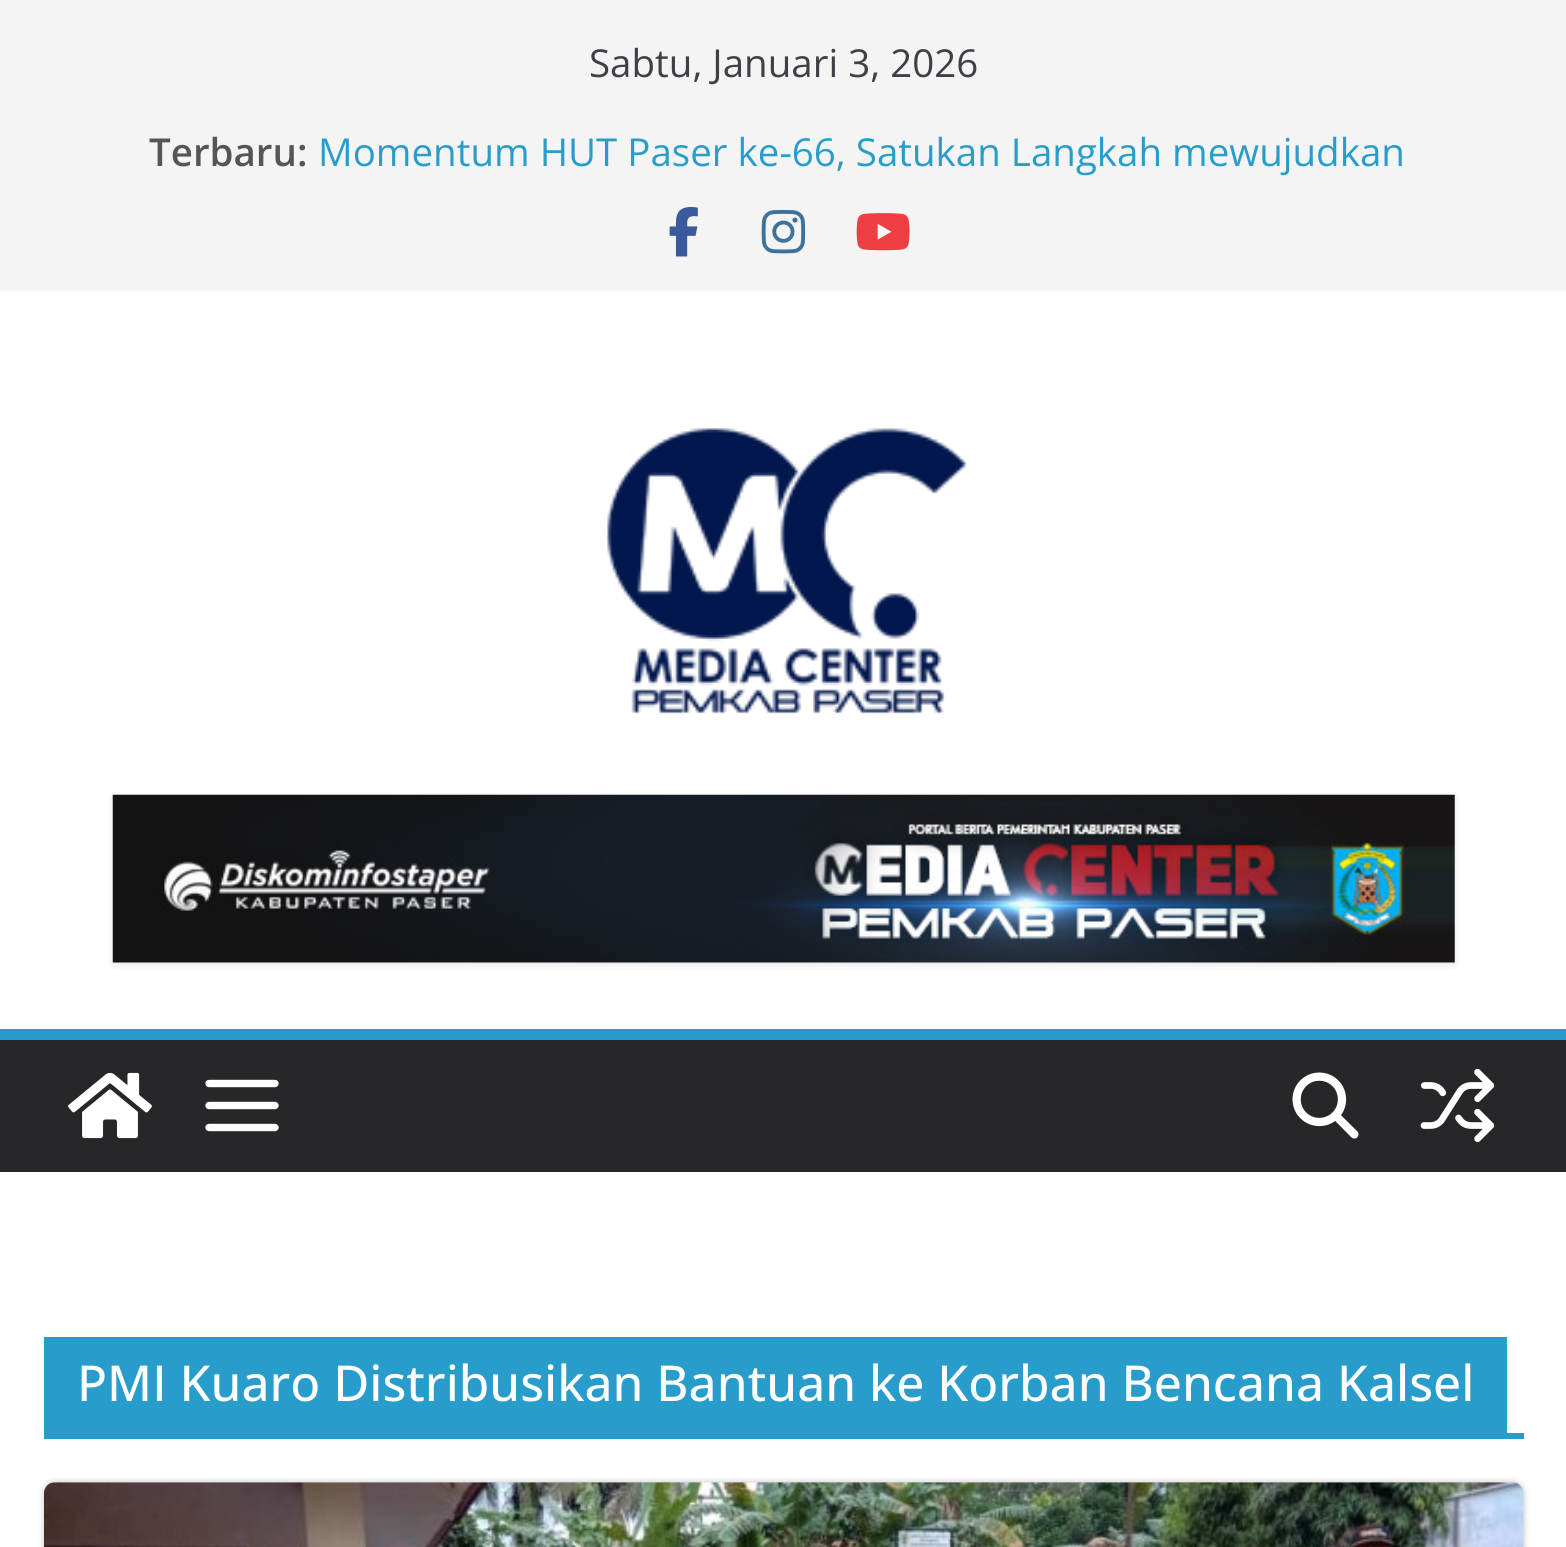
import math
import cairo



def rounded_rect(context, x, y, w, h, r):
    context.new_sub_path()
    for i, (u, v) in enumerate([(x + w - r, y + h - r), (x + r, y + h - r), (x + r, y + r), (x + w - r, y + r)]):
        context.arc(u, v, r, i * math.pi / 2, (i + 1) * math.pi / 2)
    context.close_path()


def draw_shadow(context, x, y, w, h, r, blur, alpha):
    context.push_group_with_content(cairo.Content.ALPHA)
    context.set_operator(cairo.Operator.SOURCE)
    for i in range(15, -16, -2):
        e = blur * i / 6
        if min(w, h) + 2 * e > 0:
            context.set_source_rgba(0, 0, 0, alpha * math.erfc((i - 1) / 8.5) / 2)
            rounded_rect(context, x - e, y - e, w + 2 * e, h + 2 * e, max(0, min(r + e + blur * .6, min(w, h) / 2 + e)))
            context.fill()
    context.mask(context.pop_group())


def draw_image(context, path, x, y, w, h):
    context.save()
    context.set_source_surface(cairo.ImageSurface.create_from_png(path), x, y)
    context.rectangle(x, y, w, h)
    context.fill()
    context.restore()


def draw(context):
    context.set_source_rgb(1, 1, 1)
    context.paint()
    context.set_source_rgb(0, 0, 0)
    draw_shadow(context, 0, 0, 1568, 289, 0, 3, 0.1)
    context.set_source_rgb(244 / 255, 244 / 255, 245 / 255)
    context.rectangle(0, 0, 1566, 289)
    context.fill()
    draw_image(context, "images/1.png", 669, 206, 29, 51)
    draw_image(context, "images/2.png", 761, 210, 45, 44)
    draw_image(context, "images/3.png", 856, 213, 54, 38)
    draw_image(context, "images/4.png", 607, 428, 360, 286)
    context.set_source_rgb(0, 0, 0)
    draw_shadow(context, 113, 798, 1342, 167, 0, 4, 0.1)
    draw_image(context, "images/5.png", 112, 794, 1343, 169)
    context.set_source_rgb(39 / 255, 39 / 255, 42 / 255)
    context.rectangle(0, 1040, 1566, 132)
    context.fill()
    context.set_source_rgb(40 / 255, 157 / 255, 204 / 255)
    context.rectangle(0, 1029, 1566, 11)
    context.fill()
    draw_image(context, "images/6.png", 68, 1072, 84, 67)
    draw_image(context, "images/7.png", 205, 1079, 74, 53)
    draw_image(context, "images/8.png", 1292, 1072, 67, 67)
    draw_image(context, "images/9.png", 1420, 1068, 75, 74)
    context.rectangle(44, 1433, 1480, 6)
    context.fill()
    context.rectangle(44, 1337, 1463, 96)
    context.fill()
    context.set_source_rgb(0, 0, 0)
    draw_shadow(context, 44, 1482, 1480, 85, 11, 3, 0.24)
    draw_image(context, "images/10.png", 44, 1482, 1480, 65)
    context.select_font_face("Open Sans")
    context.set_font_size(38.5)
    context.set_source_rgb(63 / 255, 63 / 255, 70 / 255)
    context.move_to(589, 77)
    context.show_text("Sabtu, Januari 3, 2026")
    context.select_font_face("Open Sans SemiBold")
    context.set_source_rgb(85 / 255, 85 / 255, 85 / 255)
    context.move_to(149, 166)
    context.show_text("Terbaru:")
    context.select_font_face("Open Sans")
    context.set_source_rgb(40 / 255, 157 / 255, 204 / 255)
    context.move_to(318, 166)
    context.show_text("Momentum HUT Paser ke-66, Satukan Langkah mewujudkan")
    context.select_font_face("Open Sans Medium")
    context.set_font_size(49.5)
    context.set_source_rgb(1, 1, 1)
    context.move_to(77, 1401)
    context.show_text("PMI Kuaro Distribusikan Bantuan ke Korban Bencana Kalsel")


surface = cairo.ImageSurface(cairo.Format.RGB24, 1566, 1547)
context = cairo.Context(surface)
options = cairo.FontOptions()
options.set_hint_metrics(cairo.HintMetrics.OFF)
options.set_hint_style(cairo.HintStyle.NONE)
context.set_font_options(options)
context.set_miter_limit(4)
draw(context)
surface.write_to_png("out.png")
